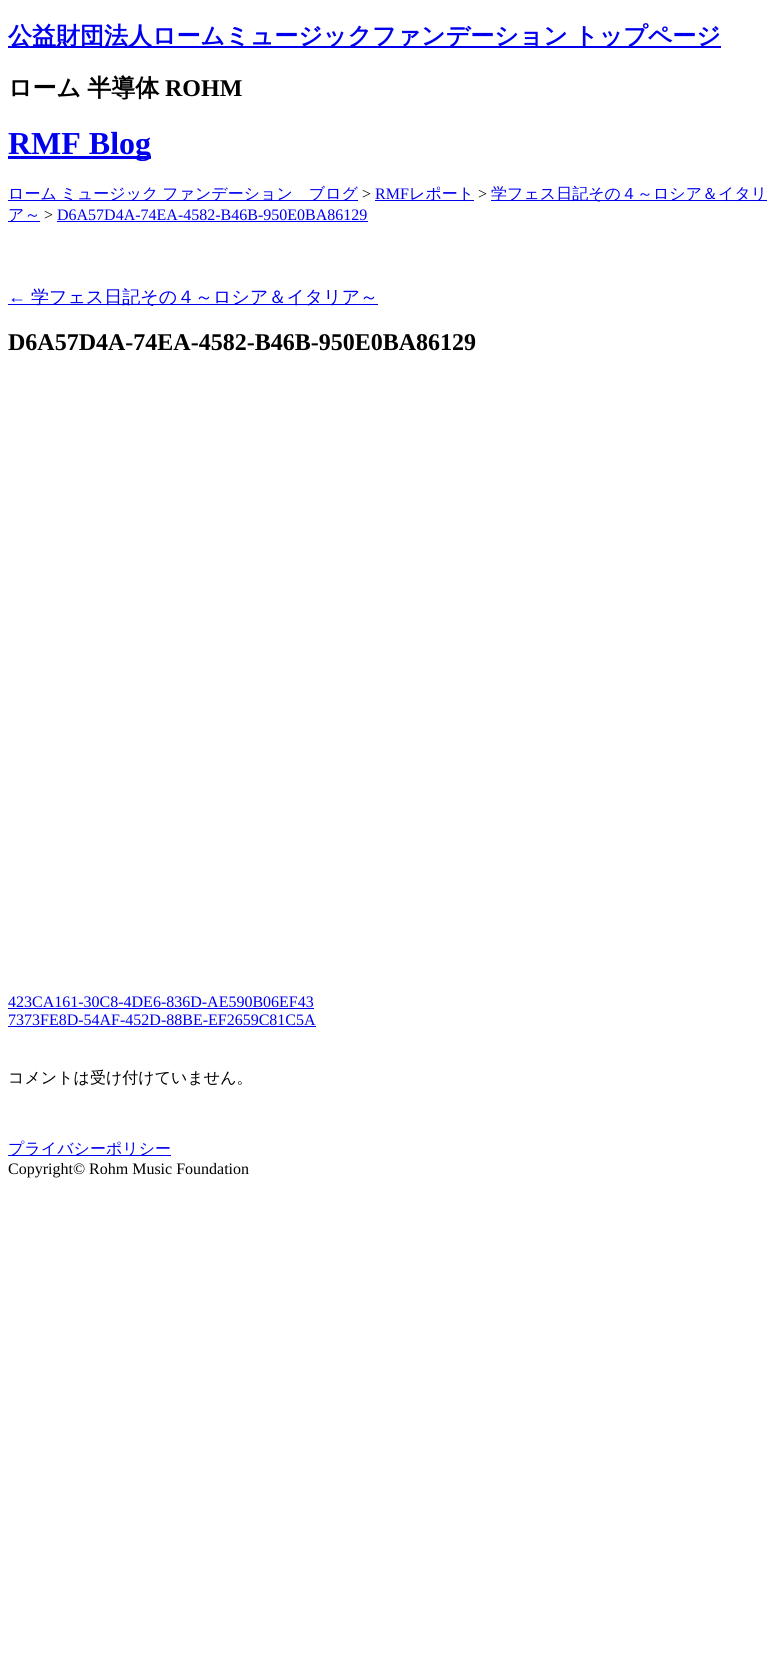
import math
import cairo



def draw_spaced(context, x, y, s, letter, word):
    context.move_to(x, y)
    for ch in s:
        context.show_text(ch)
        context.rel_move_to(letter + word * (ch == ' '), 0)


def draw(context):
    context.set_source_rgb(1, 1, 1)
    context.paint()
    context.set_source_rgb(0, 0, 238 / 255)
    context.rectangle(8, 46, 713, 2)
    context.fill()
    context.rectangle(8, 156, 143, 3)
    context.fill()
    context.rectangle(8, 200, 350, 1)
    context.fill()
    context.rectangle(375, 200, 99, 1)
    context.fill()
    context.rectangle(491, 200, 276, 1)
    context.fill()
    context.rectangle(8, 221, 32, 1)
    context.fill()
    context.rectangle(57, 221, 311, 1)
    context.fill()
    context.rectangle(8, 304, 370, 1)
    context.fill()
    context.rectangle(8, 1008, 306, 1)
    context.fill()
    context.rectangle(8, 1026, 308, 1)
    context.fill()
    context.rectangle(8, 1155, 163, 1)
    context.fill()
    context.select_font_face("WenQuanYi Zen Hei", cairo.FontSlant.NORMAL, cairo.FontWeight.BOLD)
    context.set_font_size(24)
    draw_spaced(context, 8, 44, "公益財団法人ロームミュージックファンデーション トップページ", 0, -1)
    context.set_source_rgb(0, 0, 0)
    draw_spaced(context, 8, 96, "ローム 半導体", 0, -1)
    context.select_font_face("Liberation Serif", cairo.FontSlant.NORMAL, cairo.FontWeight.BOLD)
    context.move_to(165, 96)
    context.show_text("ROHM")
    context.set_font_size(32)
    context.set_source_rgb(0, 0, 238 / 255)
    context.move_to(8, 154)
    context.show_text("RMF Blog")
    context.select_font_face("WenQuanYi Zen Hei Medium")
    context.set_font_size(16)
    draw_spaced(context, 8, 199, "ローム ミュージック ファンデーション　ブログ", 0, -1)
    context.select_font_face("Liberation Serif")
    context.set_source_rgb(0, 0, 0)
    context.move_to(362, 199)
    context.show_text(">")
    context.set_source_rgb(0, 0, 238 / 255)
    context.move_to(375, 199)
    context.show_text("RMF")
    context.select_font_face("WenQuanYi Zen Hei Medium")
    context.move_to(409, 199)
    context.show_text("レポート")
    context.select_font_face("Liberation Serif")
    context.set_source_rgb(0, 0, 0)
    context.move_to(478, 199)
    context.show_text(">")
    context.select_font_face("WenQuanYi Zen Hei Medium")
    context.set_source_rgb(0, 0, 238 / 255)
    context.move_to(491, 199)
    context.show_text("学フェス日記その４～ロシア＆イタリ")
    context.move_to(8, 220)
    context.show_text("ア～")
    context.select_font_face("Liberation Serif")
    context.set_source_rgb(0, 0, 0)
    context.move_to(44, 220)
    context.show_text(">")
    context.set_source_rgb(0, 0, 238 / 255)
    context.move_to(57, 220)
    context.show_text("D6A57D4A-74EA-4582-B46B-950E0BA86129")
    context.set_font_size(18)
    context.move_to(8, 303)
    context.show_text("←")
    context.select_font_face("WenQuanYi Zen Hei Medium")
    context.move_to(31, 303)
    context.show_text("学フェス日記その４～ロシア＆イタリア～")
    context.select_font_face("Liberation Serif", cairo.FontSlant.NORMAL, cairo.FontWeight.BOLD)
    context.set_font_size(24)
    context.set_source_rgb(0, 0, 0)
    context.move_to(8, 350)
    context.show_text("D6A57D4A-74EA-4582-B46B-950E0BA86129")
    context.select_font_face("Liberation Serif")
    context.set_font_size(16)
    context.set_source_rgb(0, 0, 238 / 255)
    context.move_to(8, 1007)
    context.show_text("423CA161-30C8-4DE6-836D-AE590B06EF43")
    context.move_to(8, 1025)
    context.show_text("7373FE8D-54AF-452D-88BE-EF2659C81C5A")
    context.select_font_face("WenQuanYi Zen Hei Medium")
    context.set_source_rgb(0, 0, 0)
    context.move_to(8, 1083)
    context.show_text("コメントは受け付けていません。")
    context.set_source_rgb(0, 0, 238 / 255)
    context.move_to(8, 1154)
    context.show_text("プライバシーポリシー")
    context.select_font_face("Liberation Serif")
    context.set_source_rgb(0, 0, 0)
    context.move_to(8, 1174)
    context.show_text("Copyright© Rohm Music Foundation")


surface = cairo.ImageSurface(cairo.Format.RGB24, 781, 1670)
context = cairo.Context(surface)
options = cairo.FontOptions()
options.set_hint_metrics(cairo.HintMetrics.OFF)
options.set_hint_style(cairo.HintStyle.NONE)
context.set_font_options(options)
context.set_miter_limit(4)
draw(context)
surface.write_to_png("out.png")
